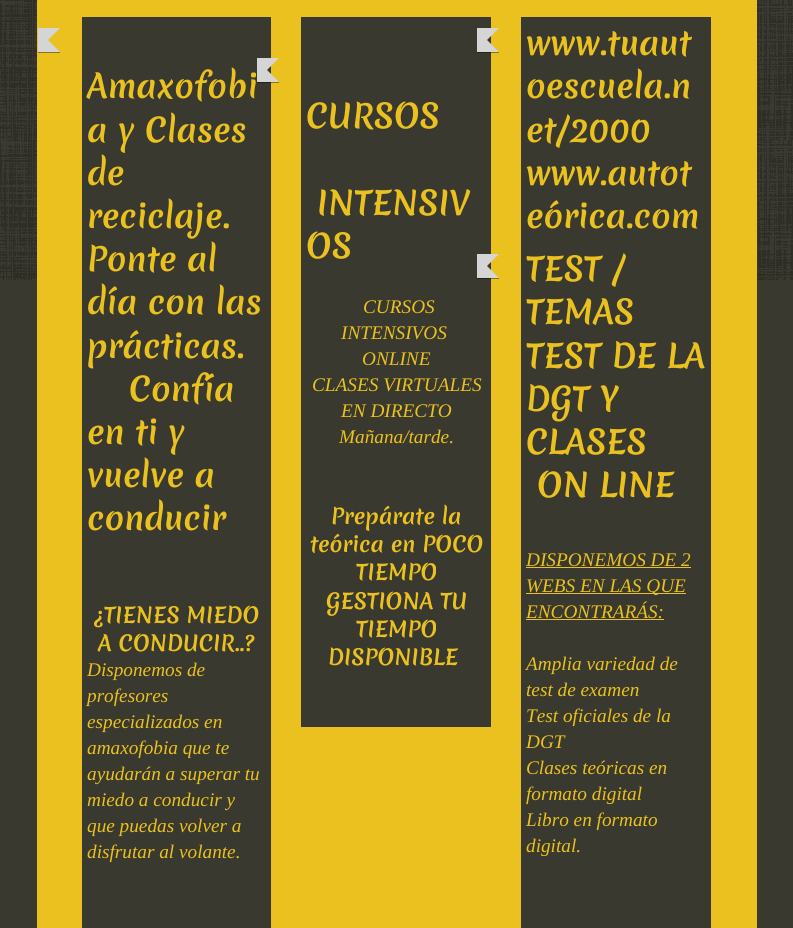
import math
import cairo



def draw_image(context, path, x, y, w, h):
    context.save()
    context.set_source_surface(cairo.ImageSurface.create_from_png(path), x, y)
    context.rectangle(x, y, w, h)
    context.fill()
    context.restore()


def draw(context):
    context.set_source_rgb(57 / 255, 57 / 255, 47 / 255)
    context.paint()
    draw_image(context, "images/1.png", 0, 0, 793, 280)
    context.set_source_rgb(234 / 255, 193 / 255, 31 / 255)
    context.rectangle(37, 0, 720, 928)
    context.fill()
    context.set_source_rgb(57 / 255, 57 / 255, 47 / 255)
    context.rectangle(82, 17, 189, 911)
    context.fill()
    context.set_source_rgb(140 / 255, 116 / 255, 19 / 255)
    context.rectangle(38, 52, 22, 1)
    context.fill()
    context.set_source_rgb(213 / 255, 213 / 255, 213 / 255)
    context.new_path()
    context.move_to(38, 28)
    context.line_to(60, 28)
    context.line_to(48, 40)
    context.close_path()
    context.move_to(60, 52)
    context.line_to(38, 52)
    context.line_to(48, 40)
    context.close_path()
    context.fill()
    context.rectangle(38, 28, 10, 24)
    context.fill()
    context.set_source_rgb(57 / 255, 57 / 255, 47 / 255)
    context.rectangle(301, 17, 190, 710)
    context.fill()
    context.set_source_rgba(0, 0, 0, 0.4)
    context.rectangle(257, 82, 22, 1)
    context.fill()
    context.set_source_rgb(213 / 255, 213 / 255, 213 / 255)
    context.new_path()
    context.move_to(257, 58)
    context.line_to(279, 58)
    context.line_to(267, 70)
    context.close_path()
    context.move_to(279, 82)
    context.line_to(257, 82)
    context.line_to(267, 70)
    context.close_path()
    context.fill()
    context.rectangle(257, 58, 10, 24)
    context.fill()
    context.set_source_rgb(57 / 255, 57 / 255, 47 / 255)
    context.rectangle(521, 17, 190, 911)
    context.fill()
    context.set_source_rgba(0, 0, 0, 0.4)
    context.rectangle(477, 52, 22, 1)
    context.fill()
    context.set_source_rgb(213 / 255, 213 / 255, 213 / 255)
    context.new_path()
    context.move_to(477, 28)
    context.line_to(499, 28)
    context.line_to(487, 40)
    context.close_path()
    context.move_to(499, 52)
    context.line_to(477, 52)
    context.line_to(487, 40)
    context.close_path()
    context.fill()
    context.rectangle(477, 28, 10, 24)
    context.fill()
    context.set_source_rgba(0, 0, 0, 0.4)
    context.rectangle(477, 278, 22, 1)
    context.fill()
    context.set_source_rgb(213 / 255, 213 / 255, 213 / 255)
    context.new_path()
    context.move_to(477, 254)
    context.line_to(499, 254)
    context.line_to(487, 266)
    context.close_path()
    context.move_to(499, 278)
    context.line_to(477, 278)
    context.line_to(487, 266)
    context.close_path()
    context.fill()
    context.rectangle(477, 254, 10, 24)
    context.fill()
    context.set_source_rgb(234 / 255, 193 / 255, 31 / 255)
    context.rectangle(526, 567, 165, 1)
    context.fill()
    context.rectangle(526, 593, 160, 1)
    context.fill()
    context.rectangle(526, 619, 138, 1)
    context.fill()
    context.select_font_face("Merienda", cairo.FontSlant.NORMAL, cairo.FontWeight.BOLD)
    context.set_font_size(32)
    context.move_to(87, 98)
    context.show_text("Amaxofobi")
    context.move_to(87, 142)
    context.show_text("a y Clases")
    context.move_to(87, 185)
    context.show_text("de")
    context.move_to(87, 228)
    context.show_text("reciclaje.")
    context.move_to(87, 271)
    context.show_text("Ponte al")
    context.move_to(87, 314)
    context.show_text("día con las")
    context.move_to(87, 358)
    context.show_text("prácticas.")
    context.move_to(129, 401)
    context.show_text("Confía")
    context.move_to(87, 444)
    context.show_text("en ti y")
    context.move_to(87, 487)
    context.show_text("vuelve a")
    context.move_to(87, 530)
    context.show_text("conducir")
    context.set_font_size(21)
    context.move_to(94, 623)
    context.show_text("¿TIENES MIEDO")
    context.move_to(98, 651)
    context.show_text("A CONDUCIR..?")
    context.select_font_face("Liberation Serif", cairo.FontSlant.ITALIC)
    context.set_font_size(19.25)
    context.move_to(87, 676)
    context.show_text("Disponemos de")
    context.move_to(87, 702)
    context.show_text("profesores")
    context.move_to(87, 728)
    context.show_text("especializados en")
    context.move_to(87, 754)
    context.show_text("amaxofobia que te")
    context.move_to(87, 780)
    context.show_text("ayudarán a superar tu")
    context.move_to(87, 806)
    context.show_text("miedo a conducir y")
    context.move_to(87, 832)
    context.show_text("que puedas volver a")
    context.move_to(87, 858)
    context.show_text("disfrutar al volante.")
    context.select_font_face("Merienda", cairo.FontSlant.NORMAL, cairo.FontWeight.BOLD)
    context.set_font_size(32)
    context.move_to(306, 128)
    context.show_text("CURSOS")
    context.move_to(317, 215)
    context.show_text("INTENSIV")
    context.move_to(306, 258)
    context.show_text("OS")
    context.select_font_face("Liberation Serif", cairo.FontSlant.ITALIC)
    context.set_font_size(19.25)
    context.move_to(363, 313)
    context.show_text("CURSOS")
    context.move_to(341, 339)
    context.show_text("INTENSIVOS")
    context.move_to(362, 365)
    context.show_text("ONLINE")
    context.move_to(312, 391)
    context.show_text("CLASES VIRTUALES")
    context.move_to(341, 417)
    context.show_text("EN DIRECTO")
    context.move_to(339, 443)
    context.show_text("Mañana/tarde.")
    context.select_font_face("Merienda", cairo.FontSlant.NORMAL, cairo.FontWeight.BOLD)
    context.set_font_size(21)
    context.move_to(331, 524)
    context.show_text("Prepárate la")
    context.move_to(310, 552)
    context.show_text("teórica en POCO")
    context.move_to(356, 580)
    context.show_text("TIEMPO")
    context.move_to(326, 609)
    context.show_text("GESTIONA TU")
    context.move_to(356, 637)
    context.show_text("TIEMPO")
    context.move_to(328, 665)
    context.show_text("DISPONIBLE")
    context.set_font_size(32)
    context.move_to(526, 55)
    context.show_text("www.tuaut")
    context.move_to(526, 98)
    context.show_text("oescuela.n")
    context.move_to(526, 142)
    context.show_text("et/2000")
    context.move_to(526, 185)
    context.show_text("www.autot")
    context.move_to(526, 228)
    context.show_text("eórica.com")
    context.move_to(526, 281)
    context.show_text("TEST /")
    context.move_to(526, 324)
    context.show_text("TEMAS")
    context.move_to(526, 368)
    context.show_text("TEST DE LA")
    context.move_to(526, 411)
    context.show_text("DGT Y")
    context.move_to(526, 454)
    context.show_text("CLASES")
    context.move_to(537, 497)
    context.show_text("ON LINE")
    context.select_font_face("Liberation Serif", cairo.FontSlant.ITALIC)
    context.set_font_size(19.25)
    context.move_to(526, 566)
    context.show_text("DISPONEMOS DE 2")
    context.move_to(526, 592)
    context.show_text("WEBS EN LAS QUE")
    context.move_to(526, 618)
    context.show_text("ENCONTRARÁS:")
    context.move_to(526, 670)
    context.show_text("Amplia variedad de")
    context.move_to(526, 696)
    context.show_text("test de examen")
    context.move_to(526, 722)
    context.show_text("Test oficiales de la")
    context.move_to(526, 748)
    context.show_text("DGT")
    context.move_to(526, 774)
    context.show_text("Clases teóricas en")
    context.move_to(526, 800)
    context.show_text("formato digital")
    context.move_to(526, 826)
    context.show_text("Libro en formato")
    context.move_to(526, 852)
    context.show_text("digital.")


surface = cairo.ImageSurface(cairo.Format.RGB24, 793, 928)
context = cairo.Context(surface)
options = cairo.FontOptions()
options.set_hint_metrics(cairo.HintMetrics.OFF)
options.set_hint_style(cairo.HintStyle.NONE)
context.set_font_options(options)
context.set_miter_limit(4)
draw(context)
surface.write_to_png("out.png")
